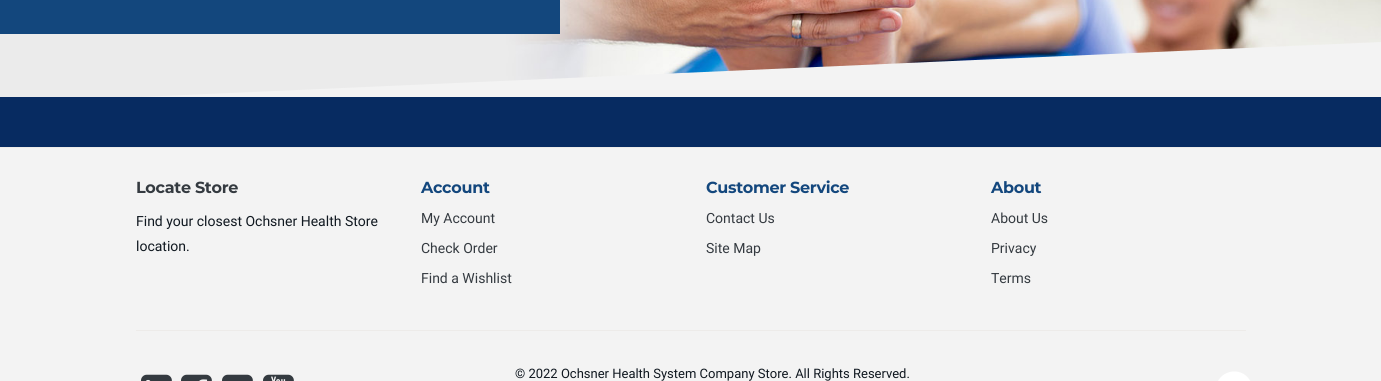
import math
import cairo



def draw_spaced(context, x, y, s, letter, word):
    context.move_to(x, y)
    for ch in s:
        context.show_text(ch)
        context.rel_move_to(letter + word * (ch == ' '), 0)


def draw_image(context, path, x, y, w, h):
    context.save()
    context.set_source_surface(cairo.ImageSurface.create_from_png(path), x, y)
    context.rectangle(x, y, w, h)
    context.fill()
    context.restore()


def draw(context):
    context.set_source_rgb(243 / 255, 243 / 255, 243 / 255)
    context.paint()
    draw_image(context, "images/1.png", 0, 0, 1381, 97)
    context.set_source_rgb(19 / 255, 71 / 255, 125 / 255)
    context.rectangle(0, 0, 560, 34)
    context.fill()
    context.set_source_rgb(243 / 255, 243 / 255, 243 / 255)
    context.new_path()
    context.move_to(1381, 97)
    context.line_to(139, 97)
    context.line_to(1381, 42)
    context.close_path()
    context.fill()
    context.set_source_rgb(7 / 255, 43 / 255, 97 / 255)
    context.rectangle(0, 97, 1381, 50)
    context.fill()
    context.set_source_rgb(237 / 255, 235 / 255, 233 / 255)
    context.rectangle(0, 147, 1381, 1)
    context.fill()
    context.rectangle(136, 330, 1110, 1)
    context.fill()
    draw_image(context, "images/2.png", 141, 374, 31, 7)
    draw_image(context, "images/3.png", 181, 374, 31, 7)
    draw_image(context, "images/4.png", 222, 374, 31, 7)
    draw_image(context, "images/5.png", 263, 374, 31, 7)
    context.set_source_rgb(1, 1, 1)
    context.new_path()
    context.move_to(1250, 380.5)
    context.curve_to(1252, 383.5, 1253, 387.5, 1252.5, 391)
    context.curve_to(1251.5, 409, 1227.5, 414.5, 1218.5, 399)
    context.curve_to(1216.5, 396, 1216, 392, 1216, 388.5)
    context.curve_to(1217, 370.5, 1241, 365, 1250, 380.5)
    context.close_path()
    context.fill()
    context.select_font_face("Montserrat", cairo.FontSlant.NORMAL, cairo.FontWeight.BOLD)
    context.set_font_size(16)
    context.set_source_rgb(52 / 255, 58 / 255, 64 / 255)
    draw_spaced(context, 136, 193, "Locate Store", -0.3, 0)
    context.select_font_face("Roboto")
    context.set_font_size(14)
    context.set_source_rgb(16 / 255, 24 / 255, 32 / 255)
    context.move_to(136, 226)
    context.show_text("Find your closest Ochsner Health Store")
    context.move_to(136, 251)
    context.show_text("location.")
    context.select_font_face("Montserrat", cairo.FontSlant.NORMAL, cairo.FontWeight.BOLD)
    context.set_font_size(16)
    context.set_source_rgb(19 / 255, 71 / 255, 125 / 255)
    draw_spaced(context, 421, 193, "Account", -0.3, 0)
    context.select_font_face("Roboto")
    context.set_font_size(14)
    context.set_source_rgb(52 / 255, 58 / 255, 64 / 255)
    context.move_to(421, 223)
    context.show_text("My Account")
    context.move_to(421, 253)
    context.show_text("Check Order")
    context.move_to(421, 283)
    context.show_text("Find a Wishlist")
    context.select_font_face("Montserrat", cairo.FontSlant.NORMAL, cairo.FontWeight.BOLD)
    context.set_font_size(16)
    context.set_source_rgb(19 / 255, 71 / 255, 125 / 255)
    draw_spaced(context, 706, 193, "Customer Service", -0.3, 0)
    context.select_font_face("Roboto")
    context.set_font_size(14)
    context.set_source_rgb(52 / 255, 58 / 255, 64 / 255)
    context.move_to(706, 223)
    context.show_text("Contact Us")
    context.move_to(706, 253)
    context.show_text("Site Map")
    context.select_font_face("Montserrat", cairo.FontSlant.NORMAL, cairo.FontWeight.BOLD)
    context.set_font_size(16)
    context.set_source_rgb(19 / 255, 71 / 255, 125 / 255)
    draw_spaced(context, 991, 193, "About", -0.3, 0)
    context.select_font_face("Roboto")
    context.set_font_size(14)
    context.set_source_rgb(52 / 255, 58 / 255, 64 / 255)
    context.move_to(991, 223)
    context.show_text("About Us")
    context.move_to(991, 253)
    context.show_text("Privacy")
    context.move_to(991, 283)
    context.show_text("Terms")
    context.set_font_size(13)
    context.set_source_rgb(16 / 255, 24 / 255, 32 / 255)
    context.move_to(515, 378)
    context.show_text("© 2022 Ochsner Health System Company Store. All Rights Reserved.")


surface = cairo.ImageSurface(cairo.Format.RGB24, 1381, 381)
context = cairo.Context(surface)
options = cairo.FontOptions()
options.set_hint_metrics(cairo.HintMetrics.OFF)
options.set_hint_style(cairo.HintStyle.NONE)
context.set_font_options(options)
context.set_miter_limit(4)
draw(context)
surface.write_to_png("out.png")
